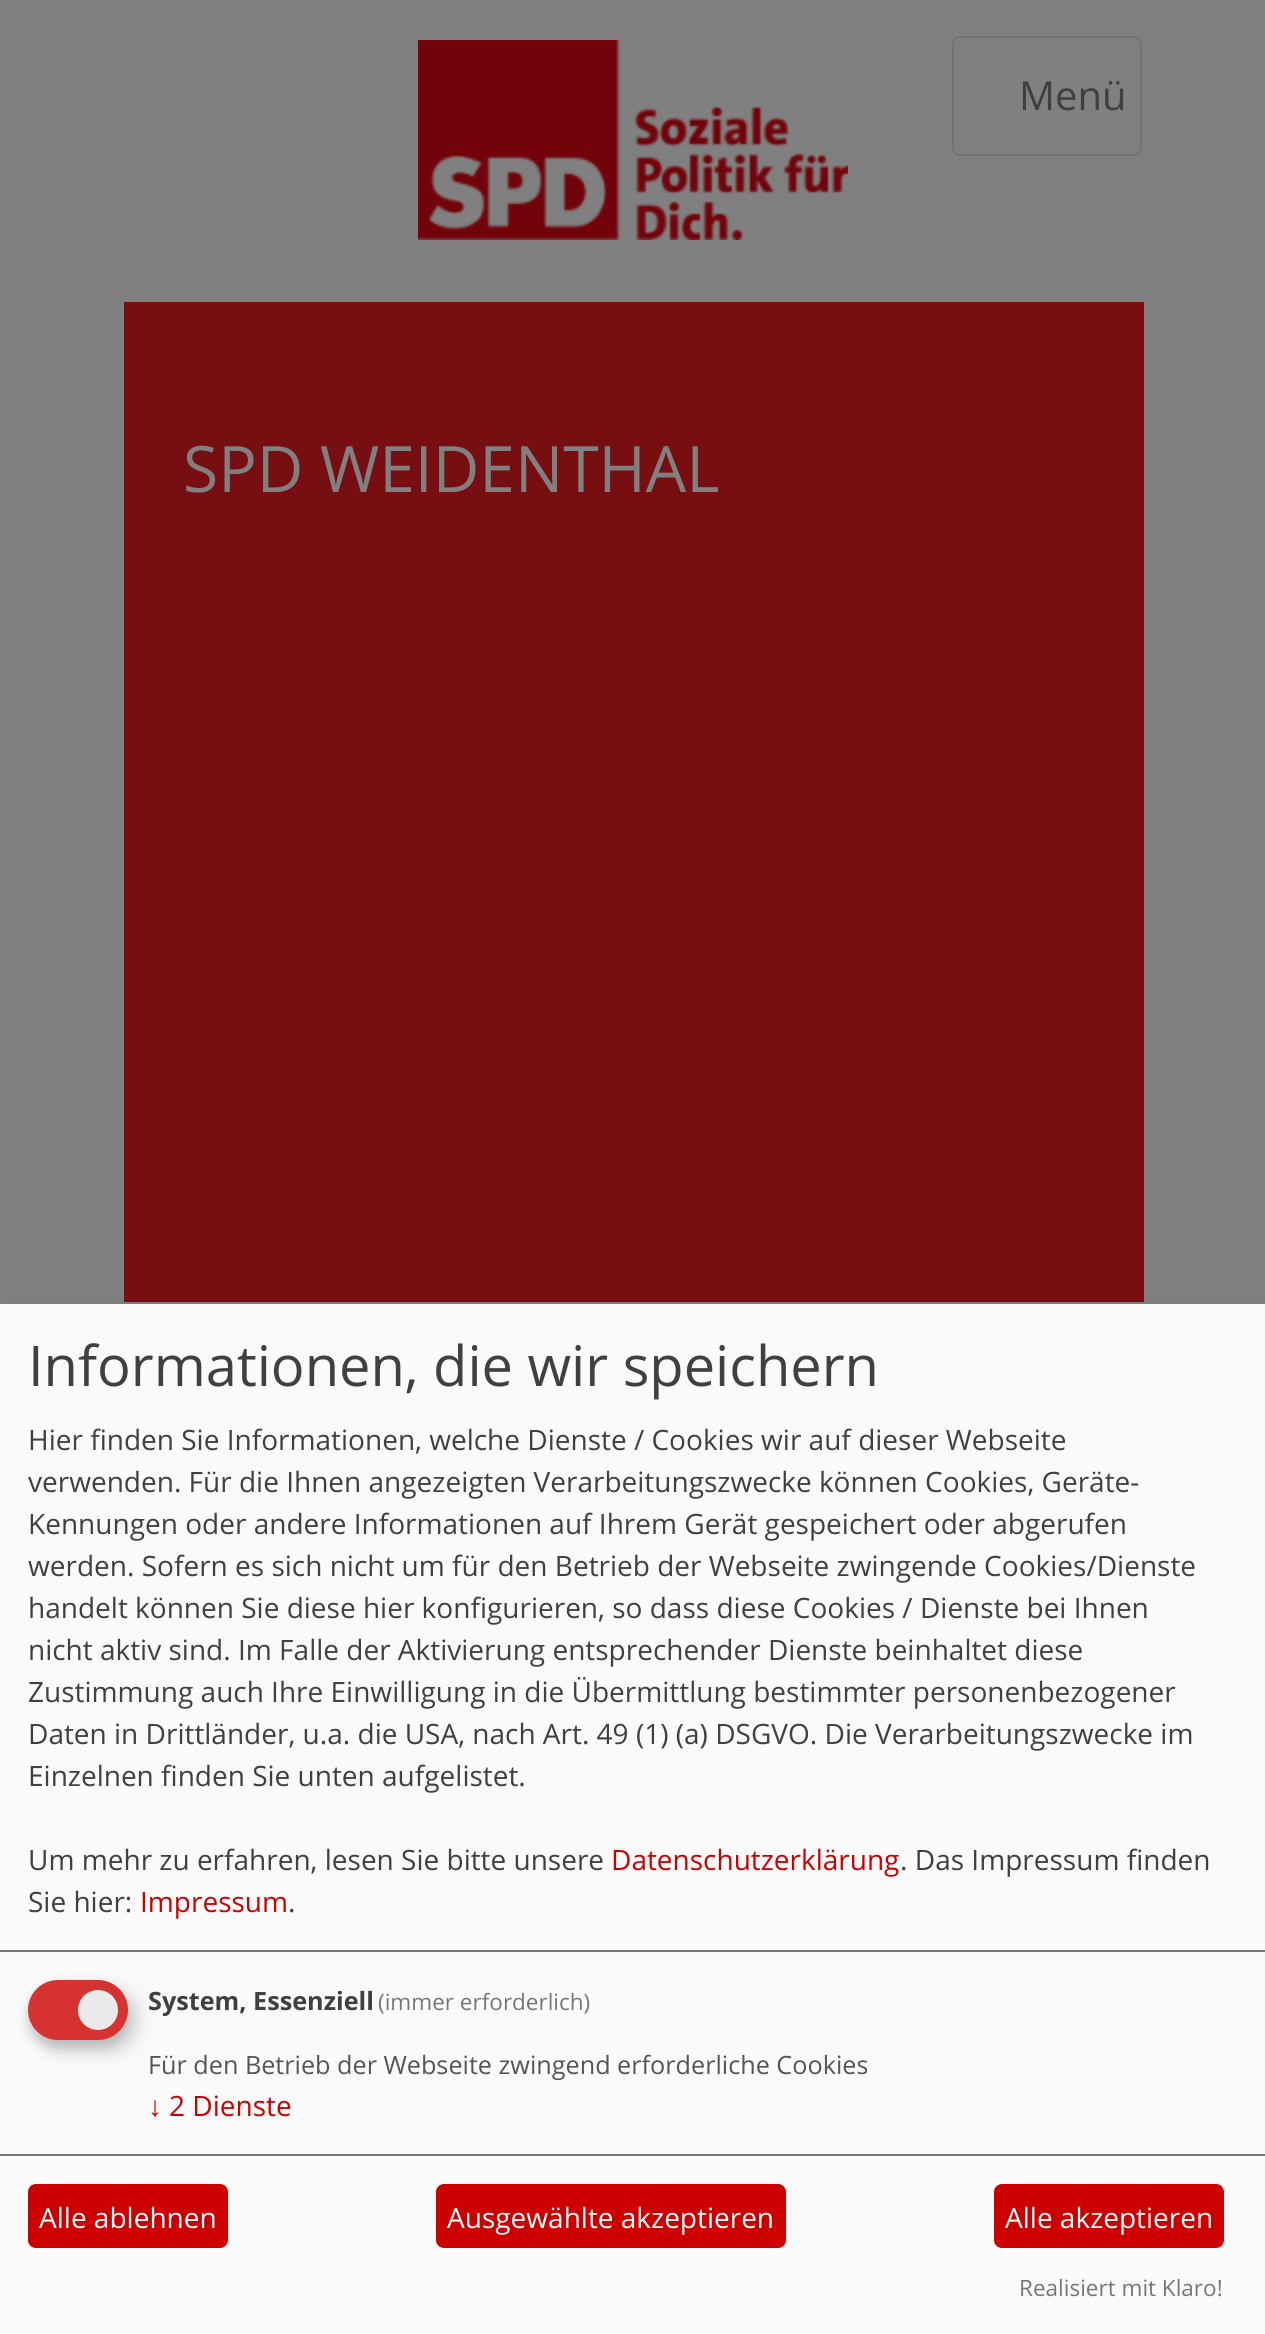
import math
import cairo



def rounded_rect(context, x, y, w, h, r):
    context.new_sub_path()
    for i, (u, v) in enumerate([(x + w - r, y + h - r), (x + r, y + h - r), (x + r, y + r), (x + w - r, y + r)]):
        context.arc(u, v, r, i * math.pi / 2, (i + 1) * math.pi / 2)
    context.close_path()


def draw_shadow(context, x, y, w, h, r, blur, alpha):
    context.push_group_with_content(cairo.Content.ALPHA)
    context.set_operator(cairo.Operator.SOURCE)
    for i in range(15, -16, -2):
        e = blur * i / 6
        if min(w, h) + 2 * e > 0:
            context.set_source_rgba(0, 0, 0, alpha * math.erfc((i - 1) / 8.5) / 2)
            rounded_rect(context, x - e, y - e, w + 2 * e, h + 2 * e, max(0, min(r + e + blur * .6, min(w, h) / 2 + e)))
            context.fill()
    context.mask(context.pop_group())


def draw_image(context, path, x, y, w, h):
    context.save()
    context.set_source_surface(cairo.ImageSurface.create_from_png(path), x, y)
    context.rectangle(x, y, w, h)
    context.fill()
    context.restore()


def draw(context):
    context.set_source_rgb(128 / 255, 128 / 255, 128 / 255)
    context.paint()
    draw_image(context, "images/1.png", 418, 40, 430, 200)
    rounded_rect(context, 953, 37, 188, 118, 7)
    context.set_source_rgb(115 / 255, 115 / 255, 115 / 255)
    context.stroke()
    context.set_source_rgb(119 / 255, 14 / 255, 18 / 255)
    context.rectangle(124, 302, 1020, 1000)
    context.fill()
    context.set_source_rgb(0, 0, 0)
    draw_shadow(context, 10, 1314, 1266, 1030, 0, 10, 0.19)
    context.set_source_rgb(250 / 255, 250 / 255, 250 / 255)
    context.rectangle(0, 1304, 1265, 1030)
    context.fill()
    context.set_source_rgb(119 / 255, 119 / 255, 119 / 255)
    context.rectangle(0, 1950, 1265, 2)
    context.fill()
    context.set_source_rgb(0, 0, 0)
    draw_shadow(context, 38, 1990, 100, 60, 30, 10, 0.15)
    context.set_source_rgb(50 / 255, 50 / 255, 50 / 255)
    draw_shadow(context, 28, 1988, 100, 60, 30, 6, 0.2)
    context.set_source_rgb(214 / 255, 50 / 255, 50 / 255)
    rounded_rect(context, 28, 1980, 100, 60, 30)
    context.fill()
    context.set_source_rgb(234 / 255, 234 / 255, 234 / 255)
    context.arc(98, 2010, 20, 0, 2 * math.pi)
    context.fill()
    context.set_source_rgb(119 / 255, 119 / 255, 119 / 255)
    context.rectangle(0, 2154, 1265, 2)
    context.fill()
    context.set_source_rgb(205 / 255, 0, 0)
    rounded_rect(context, 28, 2184, 200, 64, 8)
    context.fill()
    rounded_rect(context, 436, 2184, 350, 64, 8)
    context.fill()
    rounded_rect(context, 994, 2184, 230, 64, 8)
    context.fill()
    context.select_font_face("Open Sans")
    context.set_font_size(40)
    context.set_source_rgb(64 / 255, 64 / 255, 64 / 255)
    context.move_to(1019, 110)
    context.show_text("Menü")
    context.set_font_size(64)
    context.set_source_rgb(128 / 255, 128 / 255, 128 / 255)
    context.move_to(183, 492)
    context.show_text("SPD WEIDENTHAL")
    context.set_font_size(56)
    context.set_source_rgb(64 / 255, 64 / 255, 64 / 255)
    context.move_to(28, 1386)
    context.show_text("Informationen, die wir speichern")
    context.set_font_size(28)
    context.move_to(28, 1450)
    context.show_text("Hier finden Sie Informationen, welche Dienste / Cookies wir auf dieser Webseite")
    context.move_to(28, 1492)
    context.show_text("verwenden. Für die Ihnen angezeigten Verarbeitungszwecke können Cookies, Geräte-")
    context.move_to(28, 1534)
    context.show_text("Kennungen oder andere Informationen auf Ihrem Gerät gespeichert oder abgerufen")
    context.move_to(28, 1576)
    context.show_text("werden. Sofern es sich nicht um für den Betrieb der Webseite zwingende Cookies/Dienste")
    context.move_to(28, 1618)
    context.show_text("handelt können Sie diese hier konfigurieren, so dass diese Cookies / Dienste bei Ihnen")
    context.move_to(28, 1660)
    context.show_text("nicht aktiv sind. Im Falle der Aktivierung entsprechender Dienste beinhaltet diese")
    context.move_to(28, 1702)
    context.show_text("Zustimmung auch Ihre Einwilligung in die Übermittlung bestimmter personenbezogener")
    context.move_to(28, 1744)
    context.show_text("Daten in Drittländer, u.a. die USA, nach Art. 49 (1) (a) DSGVO. Die Verarbeitungszwecke im")
    context.move_to(28, 1786)
    context.show_text("Einzelnen finden Sie unten aufgelistet.")
    context.move_to(28, 1870)
    context.show_text("Um mehr zu erfahren, lesen Sie bitte unsere")
    context.set_source_rgb(205 / 255, 0, 0)
    context.move_to(611, 1870)
    context.show_text("Datenschutzerklärung")
    context.set_source_rgb(64 / 255, 64 / 255, 64 / 255)
    context.move_to(900, 1870)
    context.show_text(". Das Impressum finden")
    context.move_to(28, 1912)
    context.show_text("Sie hier:")
    context.set_source_rgb(205 / 255, 0, 0)
    context.move_to(140, 1912)
    context.show_text("Impressum")
    context.set_source_rgb(64 / 255, 64 / 255, 64 / 255)
    context.move_to(288, 1912)
    context.show_text(".")
    context.select_font_face("Open Sans", cairo.FontSlant.NORMAL, cairo.FontWeight.BOLD)
    context.set_font_size(25.2)
    context.move_to(148, 2010)
    context.show_text("System, Essenziell")
    context.select_font_face("Open Sans")
    context.set_font_size(22.5)
    context.set_source_rgb(119 / 255, 119 / 255, 119 / 255)
    context.move_to(378, 2010)
    context.show_text("(immer erforderlich)")
    context.set_font_size(25.2)
    context.set_source_rgb(85 / 255, 85 / 255, 85 / 255)
    context.move_to(148, 2074)
    context.show_text("Für den Betrieb der Webseite zwingend erforderliche Cookies")
    context.select_font_face("Liberation Sans")
    context.set_font_size(28)
    context.set_source_rgb(205 / 255, 0, 0)
    context.move_to(148, 2116)
    context.show_text("↓")
    context.select_font_face("Open Sans")
    context.move_to(169, 2116)
    context.show_text("2 Dienste")
    context.set_source_rgb(1, 1, 1)
    context.move_to(39, 2228)
    context.show_text("Alle ablehnen")
    context.move_to(447, 2228)
    context.show_text("Ausgewählte akzeptieren")
    context.move_to(1005, 2228)
    context.show_text("Alle akzeptieren")
    context.set_font_size(22.5)
    context.set_source_rgb(119 / 255, 119 / 255, 119 / 255)
    context.move_to(1019, 2296)
    context.show_text("Realisiert mit Klaro!")


surface = cairo.ImageSurface(cairo.Format.RGB24, 1265, 2334)
context = cairo.Context(surface)
options = cairo.FontOptions()
options.set_hint_metrics(cairo.HintMetrics.OFF)
options.set_hint_style(cairo.HintStyle.NONE)
context.set_font_options(options)
context.set_miter_limit(4)
draw(context)
surface.write_to_png("out.png")
